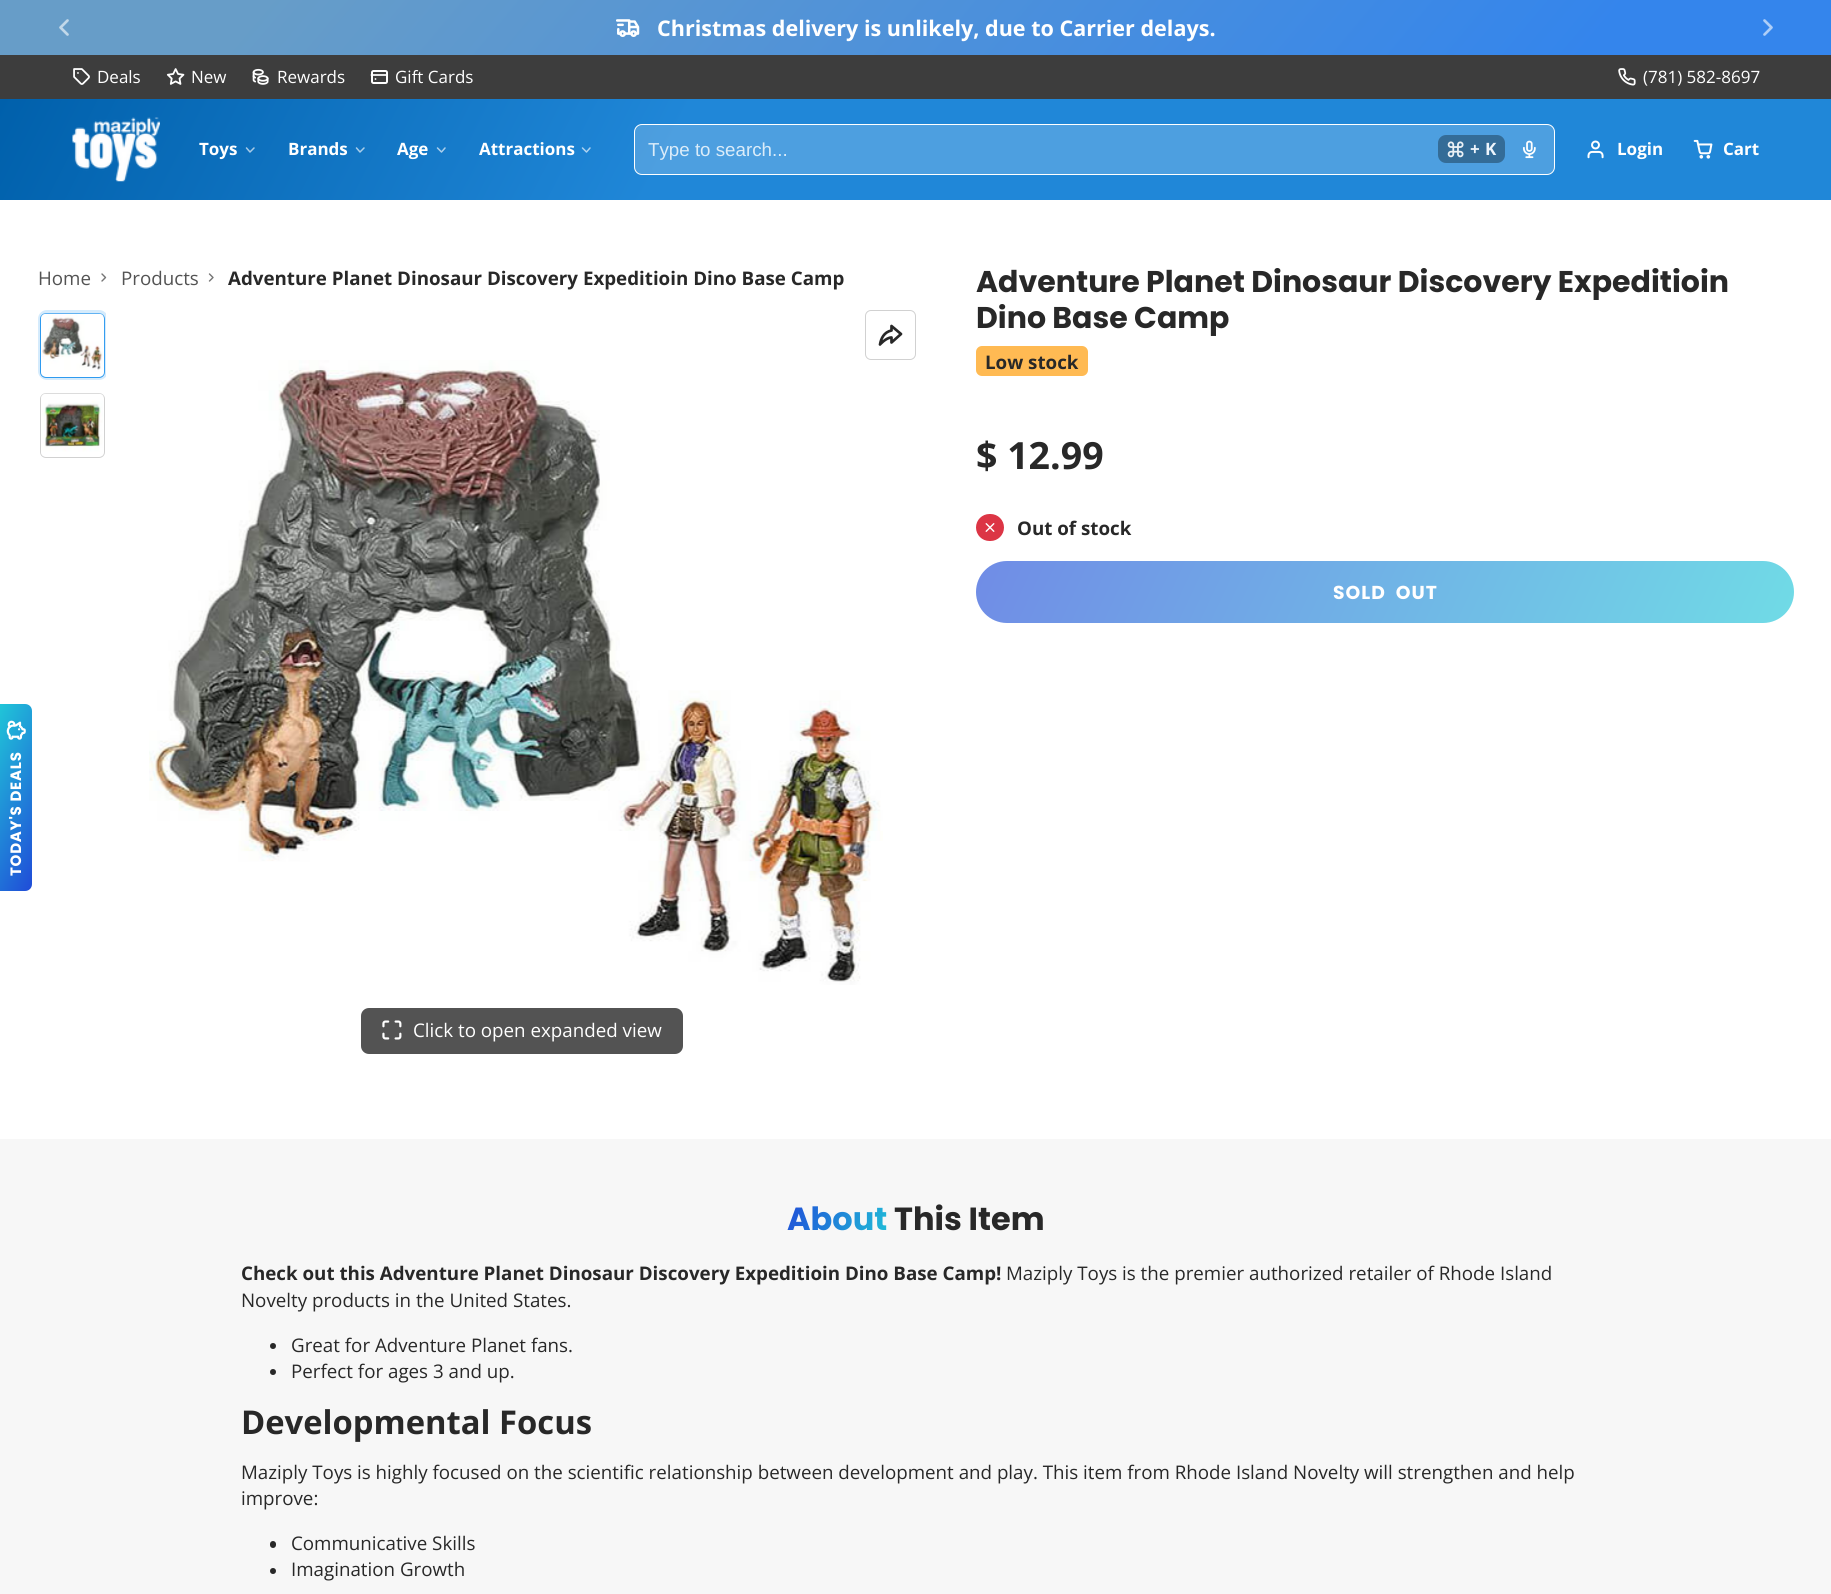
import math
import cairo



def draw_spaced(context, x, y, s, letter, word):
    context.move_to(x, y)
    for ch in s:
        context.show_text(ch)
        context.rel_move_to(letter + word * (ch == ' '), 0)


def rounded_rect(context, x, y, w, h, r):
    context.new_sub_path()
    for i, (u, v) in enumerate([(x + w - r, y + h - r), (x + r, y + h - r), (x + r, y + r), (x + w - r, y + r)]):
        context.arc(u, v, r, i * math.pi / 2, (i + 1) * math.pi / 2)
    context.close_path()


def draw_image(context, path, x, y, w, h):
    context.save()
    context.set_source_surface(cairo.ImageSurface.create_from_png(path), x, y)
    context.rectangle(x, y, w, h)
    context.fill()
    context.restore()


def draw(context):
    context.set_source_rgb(247 / 255, 247 / 255, 247 / 255)
    context.paint()
    gradient = cairo.LinearGradient(1466, 490, 365, -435)
    gradient.add_color_stop_rgba(0.13, 52 / 255, 133 / 255, 236 / 255, 1)
    gradient.add_color_stop_rgba(0.86, 103 / 255, 157 / 255, 200 / 255, 1)
    context.set_source(gradient)
    context.rectangle(0, 0, 1831, 55)
    context.fill()
    context.new_path()
    context.move_to(67.5, 34.5)
    context.line_to(60.5, 27.5)
    context.line_to(67.5, 20.5)
    context.set_source_rgb(194 / 255, 216 / 255, 233 / 255)
    context.set_line_width(2.7)
    context.set_line_cap(cairo.LineCap.ROUND)
    context.set_line_join(cairo.LineJoin.ROUND)
    context.stroke()
    draw_image(context, "images/1.png", 616, 19, 24, 18)
    context.new_path()
    context.move_to(1764.5, 34.5)
    context.line_to(1771.5, 27.5)
    context.line_to(1764.5, 20.5)
    context.set_source_rgb(174 / 255, 206 / 255, 247 / 255)
    context.stroke()
    context.set_source_rgb(61 / 255, 61 / 255, 61 / 255)
    context.rectangle(0, 55, 1831, 44)
    context.fill()
    draw_image(context, "images/2.png", 73, 68, 17, 17)
    draw_image(context, "images/3.png", 166, 68, 19, 17)
    draw_image(context, "images/4.png", 252, 68, 17, 17)
    rounded_rect(context, 372, 71, 15, 12, 1.5)
    context.set_source_rgb(1, 1, 1)
    context.set_line_width(2)
    context.set_line_cap(cairo.LineCap.BUTT)
    context.set_line_join(cairo.LineJoin.MITER)
    context.stroke()
    context.new_path()
    context.move_to(375.5, 79)
    context.line_to(375.5, 79)
    context.move_to(371.5, 75)
    context.line_to(387, 75)
    context.set_line_width(1.8)
    context.set_line_cap(cairo.LineCap.ROUND)
    context.set_line_join(cairo.LineJoin.ROUND)
    context.stroke()
    draw_image(context, "images/5.png", 1618, 68, 18, 18)
    gradient = cairo.LinearGradient(168, -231, 1663, 530)
    gradient.add_color_stop_rgba(0, 0, 96 / 255, 171 / 255, 1)
    gradient.add_color_stop_rgba(0.37, 32 / 255, 135 / 255, 216 / 255, 1)
    gradient.add_color_stop_rgba(0.97, 32 / 255, 135 / 255, 216 / 255, 1)
    context.set_source(gradient)
    context.rectangle(0, 99, 1831, 101)
    context.fill()
    draw_image(context, "images/6.png", 72, 117, 88, 65)
    context.new_path()
    context.move_to(246.5, 148)
    context.line_to(250, 152)
    context.line_to(254, 148)
    context.set_source_rgb(168 / 255, 203 / 255, 231 / 255)
    context.set_line_width(1.5)
    context.stroke()
    context.new_path()
    context.move_to(356.5, 148)
    context.line_to(360, 152)
    context.line_to(364, 148)
    context.set_source_rgb(170 / 255, 206 / 255, 234 / 255)
    context.stroke()
    context.new_path()
    context.move_to(437.5, 148)
    context.line_to(441.5, 152)
    context.line_to(445, 148)
    context.set_source_rgb(171 / 255, 207 / 255, 236 / 255)
    context.stroke()
    context.new_path()
    context.move_to(582.5, 148)
    context.line_to(586.5, 152)
    context.line_to(590, 148)
    context.set_source_rgb(173 / 255, 210 / 255, 239 / 255)
    context.stroke()
    context.set_source_rgba(1, 1, 1, 0.2)
    rounded_rect(context, 634.5, 124.5, 920, 50, 7.5)
    context.fill_preserve()
    context.set_source_rgb(1, 1, 1)
    context.set_line_width(1)
    context.set_line_cap(cairo.LineCap.BUTT)
    context.set_line_join(cairo.LineJoin.MITER)
    context.stroke()
    context.set_source_rgb(52 / 255, 108 / 255, 151 / 255)
    rounded_rect(context, 1438, 135, 67, 28, 8)
    context.fill()
    draw_image(context, "images/7.png", 1447, 141, 17, 17)
    draw_image(context, "images/8.png", 1523, 140, 13, 19)
    draw_image(context, "images/9.png", 1587, 140, 17, 19)
    draw_image(context, "images/10.png", 1693, 139, 20, 20)
    context.set_source_rgb(1, 1, 1)
    context.rectangle(0, 200, 1831, 939)
    context.fill()
    gradient = cairo.LinearGradient(65, 820, -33, 775)
    gradient.add_color_stop_rgba(0, 32 / 255, 75 / 255, 216 / 255, 1)
    gradient.add_color_stop_rgba(1, 32 / 255, 198 / 255, 216 / 255, 1)
    context.set_source(gradient)
    context.new_path()
    context.move_to(25, 891)
    context.line_to(0, 891)
    context.line_to(0, 704)
    context.line_to(25, 704)
    context.curve_to(29, 704, 32, 707, 32, 711)
    context.line_to(32, 884)
    context.curve_to(32, 888, 29, 891, 25, 891)
    context.close_path()
    context.fill()
    draw_image(context, "images/11.png", 6, 720, 20, 20)
    context.new_path()
    context.move_to(102, 281)
    context.line_to(105.5, 277.5)
    context.line_to(102, 274)
    context.set_source_rgb(117 / 255, 117 / 255, 117 / 255)
    context.set_line_width(1.4)
    context.set_line_cap(cairo.LineCap.ROUND)
    context.set_line_join(cairo.LineJoin.ROUND)
    context.stroke()
    context.new_path()
    context.move_to(209.5, 281)
    context.line_to(213, 277.5)
    context.line_to(209.5, 274)
    context.stroke()
    context.save()
    context.rectangle(38, 310, 68, 764)
    context.clip()
    rounded_rect(context, 39.5, 311.5, 67, 67, 7.5)
    context.set_source_rgb(213 / 255, 235 / 255, 252 / 255)
    context.set_line_width(3)
    context.set_line_cap(cairo.LineCap.BUTT)
    context.set_line_join(cairo.LineJoin.MITER)
    context.stroke()
    context.restore()
    rounded_rect(context, 40.5, 313.5, 64, 64, 5.5)
    context.set_source_rgb(46 / 255, 154 / 255, 239 / 255)
    context.set_line_width(1)
    context.set_line_cap(cairo.LineCap.BUTT)
    context.set_line_join(cairo.LineJoin.MITER)
    context.stroke()
    draw_image(context, "images/12.png", 41, 313, 64, 64)
    rounded_rect(context, 40.5, 393.5, 64, 64, 5.5)
    context.set_source_rgb(209 / 255, 209 / 255, 209 / 255)
    context.stroke()
    draw_image(context, "images/13.png", 41, 393, 63, 63)
    rounded_rect(context, 865.5, 310.5, 50, 49, 5.5)
    context.stroke()
    context.new_path()
    context.move_to(891.5, 326)
    context.line_to(891.5, 330.5)
    context.curve_to(884, 332, 881, 338.5, 880, 344.5)
    context.curve_to(879.5, 345, 886, 337.5, 891.5, 337.5)
    context.line_to(891.5, 342.5)
    context.line_to(901, 334)
    context.close_path()
    context.set_source_rgb(40 / 255, 40 / 255, 40 / 255)
    context.set_line_width(2.7)
    context.set_line_cap(cairo.LineCap.ROUND)
    context.set_line_join(cairo.LineJoin.ROUND)
    context.stroke()
    draw_image(context, "images/14.png", 149, 360, 734, 625)
    context.set_source_rgb(83 / 255, 83 / 255, 83 / 255)
    rounded_rect(context, 361, 1008, 322, 46, 8)
    context.fill()
    draw_image(context, "images/15.png", 382, 1020, 20, 20)
    context.set_source_rgb(1, 186 / 255, 83 / 255)
    rounded_rect(context, 976, 346, 112, 30, 6)
    context.fill()
    context.set_source_rgb(220 / 255, 53 / 255, 69 / 255)
    rounded_rect(context, 976, 514, 28, 27, 13.5)
    context.fill()
    draw_image(context, "images/16.png", 985, 523, 10, 9)
    gradient = cairo.LinearGradient(1038, 430, 1732, 754)
    gradient.add_color_stop_rgba(0, 112 / 255, 140 / 255, 230 / 255, 1)
    gradient.add_color_stop_rgba(1, 112 / 255, 219 / 255, 230 / 255, 1)
    context.set_source(gradient)
    rounded_rect(context, 976, 561, 818, 62, 31)
    context.fill()
    context.set_source_rgb(40 / 255, 40 / 255, 40 / 255)
    context.arc(273, 1346, 3, 0, 2 * math.pi)
    context.fill()
    context.arc(273, 1372, 3, 0, 2 * math.pi)
    context.fill()
    rounded_rect(context, 270, 1541, 6, 7, 3)
    context.fill()
    context.arc(273, 1571, 3, 0, 2 * math.pi)
    context.fill()
    context.select_font_face("Open Sans", cairo.FontSlant.NORMAL, cairo.FontWeight.BOLD)
    context.set_font_size(21.55)
    context.set_source_rgb(1, 1, 1)
    context.move_to(657, 36)
    context.show_text("Christmas delivery is unlikely, due to Carrier delays.")
    context.select_font_face("Open Sans")
    context.set_font_size(17)
    context.move_to(97, 83)
    context.show_text("Deals")
    context.move_to(191, 83)
    context.show_text("New")
    context.move_to(277, 83)
    context.show_text("Rewards")
    context.move_to(395, 83)
    context.show_text("Gift Cards")
    context.move_to(1643, 83)
    context.show_text("(781) 582-8697")
    context.select_font_face("Open Sans", cairo.FontSlant.NORMAL, cairo.FontWeight.BOLD)
    context.move_to(199, 155)
    context.show_text("Toys")
    context.move_to(288, 155)
    context.show_text("Brands")
    context.move_to(397, 155)
    context.show_text("Age")
    context.move_to(479, 155)
    context.show_text("Attractions")
    context.select_font_face("Liberation Sans")
    context.set_font_size(18.75)
    context.set_source_rgb(219 / 255, 236 / 255, 249 / 255)
    context.move_to(648, 156)
    context.show_text("Type to search...")
    context.select_font_face("Open Sans", cairo.FontSlant.NORMAL, cairo.FontWeight.BOLD)
    context.set_font_size(17)
    context.set_source_rgb(237 / 255, 245 / 255, 252 / 255)
    context.move_to(1470, 155)
    context.show_text("+")
    context.move_to(1485, 155)
    context.show_text("K")
    context.set_source_rgb(1, 1, 1)
    context.move_to(1617, 155)
    context.show_text("Login")
    context.move_to(1723, 155)
    context.show_text("Cart")
    context.select_font_face("Poppins", cairo.FontSlant.NORMAL, cairo.FontWeight.BOLD)
    context.set_font_size(15)
    context.save()
    context.translate(21, 876)
    context.rotate(-90 * math.pi / 180)
    draw_spaced(context, 0, 0, "TODAY'S DEALS", 0.75, 0)
    context.restore()
    context.select_font_face("Open Sans")
    context.set_font_size(18.75)
    context.set_source_rgb(83 / 255, 83 / 255, 83 / 255)
    context.move_to(38, 285)
    context.show_text("Home")
    context.move_to(121, 285)
    context.show_text("Products")
    context.select_font_face("Open Sans", cairo.FontSlant.NORMAL, cairo.FontWeight.BOLD)
    context.set_source_rgb(40 / 255, 40 / 255, 40 / 255)
    context.move_to(228, 285)
    context.show_text("Adventure Planet Dinosaur Discovery Expeditioin Dino Base Camp")
    context.select_font_face("Open Sans")
    context.set_source_rgb(1, 1, 1)
    context.move_to(413, 1037)
    context.show_text("Click to open expanded view")
    context.select_font_face("Poppins", cairo.FontSlant.NORMAL, cairo.FontWeight.BOLD)
    context.set_font_size(30)
    context.set_source_rgb(40 / 255, 40 / 255, 40 / 255)
    context.move_to(976, 292)
    context.show_text("Adventure Planet Dinosaur Discovery Expeditioin")
    context.move_to(976, 328)
    context.show_text("Dino Base Camp")
    context.select_font_face("Open Sans", cairo.FontSlant.NORMAL, cairo.FontWeight.BOLD)
    context.set_font_size(18.75)
    context.move_to(985, 369)
    context.show_text("Low stock")
    context.set_font_size(37.5)
    context.move_to(976, 469)
    context.show_text("$ 12.99")
    context.set_font_size(18.75)
    context.move_to(1017, 535)
    context.show_text("Out of stock")
    context.select_font_face("Poppins", cairo.FontSlant.NORMAL, cairo.FontWeight.BOLD)
    context.set_source_rgb(1, 1, 1)
    draw_spaced(context, 1333, 599, "SOLD OUT", 1, 5)
    context.set_font_size(32)
    gradient = cairo.LinearGradient(788, 1194, 893, 1243)
    gradient.add_color_stop_rgba(0, 32 / 255, 75 / 255, 216 / 255, 1)
    gradient.add_color_stop_rgba(1, 32 / 255, 198 / 255, 216 / 255, 1)
    context.set_source(gradient)
    context.move_to(787, 1230)
    context.show_text("About")
    context.set_source_rgb(40 / 255, 40 / 255, 40 / 255)
    context.move_to(894, 1230)
    context.show_text("This Item")
    context.select_font_face("Open Sans", cairo.FontSlant.NORMAL, cairo.FontWeight.BOLD)
    context.set_font_size(18.75)
    context.move_to(241, 1280)
    context.show_text("Check out this Adventure Planet Dinosaur Discovery Expeditioin Dino Base Camp!")
    context.select_font_face("Open Sans")
    context.move_to(1006, 1280)
    context.show_text("Maziply Toys is the premier authorized retailer of Rhode Island")
    context.move_to(241, 1307)
    context.show_text("Novelty products in the United States.")
    context.move_to(291, 1352)
    context.show_text("Great for Adventure Planet fans.")
    context.move_to(291, 1378)
    context.show_text("Perfect for ages 3 and up.")
    context.select_font_face("Open Sans", cairo.FontSlant.NORMAL, cairo.FontWeight.BOLD)
    context.set_font_size(32.75)
    context.move_to(241, 1434)
    context.show_text("Developmental Focus")
    context.select_font_face("Open Sans")
    context.set_font_size(18.75)
    context.move_to(241, 1479)
    context.show_text("Maziply Toys is highly focused on the scientific relationship between development and play. This item from Rhode Island Novelty will strengthen and help")
    context.move_to(241, 1505)
    context.show_text("improve:")
    context.move_to(291, 1550)
    context.show_text("Communicative Skills")
    context.move_to(291, 1576)
    context.show_text("Imagination Growth")


surface = cairo.ImageSurface(cairo.Format.RGB24, 1831, 1594)
context = cairo.Context(surface)
options = cairo.FontOptions()
options.set_hint_metrics(cairo.HintMetrics.OFF)
options.set_hint_style(cairo.HintStyle.NONE)
context.set_font_options(options)
context.set_miter_limit(4)
draw(context)
surface.write_to_png("out.png")
